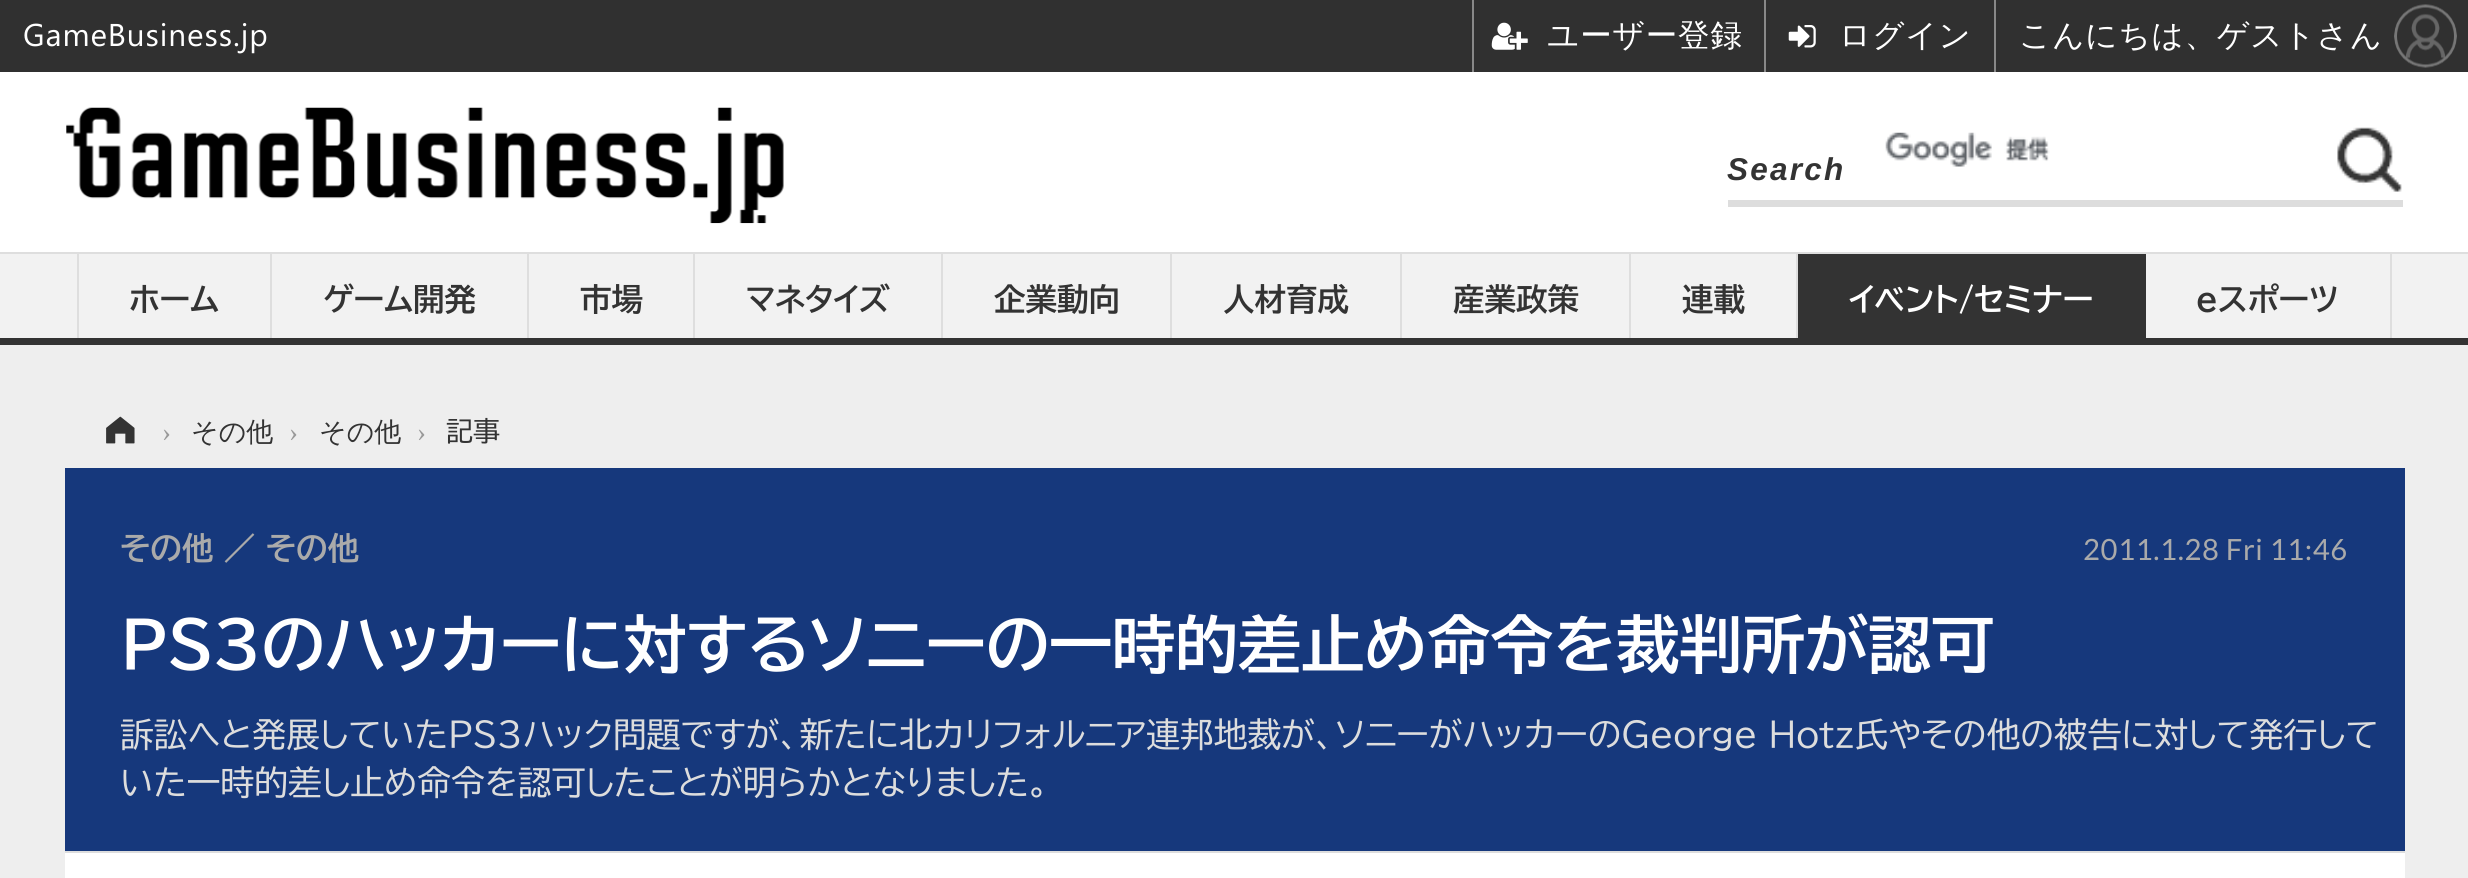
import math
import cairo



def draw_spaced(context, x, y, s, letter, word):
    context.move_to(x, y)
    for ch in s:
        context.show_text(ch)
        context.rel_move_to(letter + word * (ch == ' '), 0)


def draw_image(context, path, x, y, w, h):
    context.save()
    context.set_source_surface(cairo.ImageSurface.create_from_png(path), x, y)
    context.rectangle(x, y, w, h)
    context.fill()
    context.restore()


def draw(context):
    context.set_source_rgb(238 / 255, 238 / 255, 238 / 255)
    context.paint()
    context.set_source_rgb(48 / 255, 48 / 255, 48 / 255)
    context.rectangle(0, 0, 2468, 72)
    context.fill()
    context.set_source_rgb(136 / 255, 136 / 255, 136 / 255)
    context.rectangle(1472, 0, 2, 72)
    context.fill()
    draw_image(context, "images/1.png", 1491, 22, 37, 28)
    context.rectangle(1994, 0, 2, 72)
    context.fill()
    context.rectangle(1764, 0, 2, 72)
    context.fill()
    draw_image(context, "images/2.png", 1788, 25, 28, 23)
    draw_image(context, "images/3.png", 2394, 4, 63, 64)
    context.set_source_rgb(1, 1, 1)
    context.rectangle(0, 72, 2468, 180)
    context.fill()
    context.set_source_rgb(221 / 255, 221 / 255, 221 / 255)
    context.rectangle(1728, 200, 675, 7)
    context.fill()
    draw_image(context, "images/4.png", 1885, 132, 165, 35)
    draw_image(context, "images/5.png", 2337, 127, 65, 65)
    draw_image(context, "images/6.png", 66, 107, 718, 117)
    context.set_source_rgb(242 / 255, 242 / 255, 242 / 255)
    context.rectangle(0, 254, 2468, 84)
    context.fill()
    context.set_source_rgb(222 / 255, 222 / 255, 222 / 255)
    context.rectangle(0, 252, 2468, 2)
    context.fill()
    context.set_source_rgb(51 / 255, 51 / 255, 51 / 255)
    context.rectangle(0, 338, 2468, 7)
    context.fill()
    context.set_source_rgb(222 / 255, 222 / 255, 222 / 255)
    context.rectangle(270, 254, 2, 84)
    context.fill()
    context.rectangle(77, 254, 2, 84)
    context.fill()
    context.rectangle(527, 254, 2, 84)
    context.fill()
    context.rectangle(693, 254, 2, 84)
    context.fill()
    context.rectangle(941, 254, 2, 84)
    context.fill()
    context.rectangle(1170, 254, 2, 84)
    context.fill()
    context.rectangle(1400, 254, 2, 84)
    context.fill()
    context.rectangle(1629, 254, 2, 84)
    context.fill()
    context.rectangle(1796, 254, 2, 84)
    context.fill()
    context.set_source_rgb(51 / 255, 51 / 255, 51 / 255)
    context.rectangle(1798, 254, 348, 84)
    context.fill()
    context.set_source_rgb(222 / 255, 222 / 255, 222 / 255)
    context.rectangle(2390, 254, 2, 84)
    context.fill()
    draw_image(context, "images/7.png", 106, 416, 29, 28)
    context.set_source_rgb(22 / 255, 56 / 255, 124 / 255)
    context.rectangle(65, 468, 2340, 383)
    context.fill()
    context.set_source_rgb(221 / 255, 221 / 255, 221 / 255)
    context.rectangle(65, 851, 2340, 2)
    context.fill()
    context.set_source_rgb(1, 1, 1)
    context.rectangle(65, 853, 2340, 25)
    context.fill()
    context.select_font_face("Segoe UI")
    context.set_font_size(31.5)
    draw_spaced(context, 23, 46, "GameBusiness.jp", 0.9, 0)
    context.select_font_face("WenQuanYi Zen Hei Medium")
    draw_spaced(context, 1547, 46, "ユーザー登録", 0.9, 0)
    draw_spaced(context, 1839, 46, "ログイン", 0.9, 0)
    draw_spaced(context, 2019, 46, "こんにちは、ゲストさん", 0.9, 0)
    context.select_font_face("Liberation Sans", cairo.FontSlant.ITALIC, cairo.FontWeight.BOLD)
    context.set_source_rgb(51 / 255, 51 / 255, 51 / 255)
    draw_spaced(context, 1727, 180, "Search", 2.25, 0)
    context.select_font_face("BIZ UDPGothic", cairo.FontSlant.NORMAL, cairo.FontWeight.BOLD)
    context.move_to(129, 311)
    context.show_text("ホーム")
    context.move_to(323, 311)
    context.show_text("ゲーム開発")
    context.move_to(580, 311)
    context.show_text("市場")
    context.move_to(746, 311)
    context.show_text("マネタイズ")
    context.move_to(994, 311)
    context.show_text("企業動向")
    context.move_to(1223, 311)
    context.show_text("人材育成")
    context.move_to(1453, 311)
    context.show_text("産業政策")
    context.move_to(1682, 311)
    context.show_text("連載")
    context.set_source_rgb(1, 1, 1)
    context.move_to(1849, 311)
    context.show_text("イベント/セミナー")
    context.set_source_rgb(51 / 255, 51 / 255, 51 / 255)
    context.move_to(2196, 311)
    context.show_text("eスポーツ")
    context.select_font_face("Liberation Serif")
    context.set_font_size(27)
    context.set_source_rgb(153 / 255, 153 / 255, 153 / 255)
    context.move_to(162, 441)
    context.show_text("›")
    context.select_font_face("WenQuanYi Zen Hei Medium")
    context.set_source_rgb(51 / 255, 51 / 255, 51 / 255)
    context.move_to(191, 441)
    context.show_text("その他")
    context.select_font_face("Liberation Serif")
    context.set_source_rgb(153 / 255, 153 / 255, 153 / 255)
    context.move_to(289, 441)
    context.show_text("›")
    context.select_font_face("WenQuanYi Zen Hei Medium")
    context.set_source_rgb(51 / 255, 51 / 255, 51 / 255)
    context.move_to(319, 441)
    context.show_text("その他")
    context.select_font_face("Liberation Serif")
    context.set_source_rgb(153 / 255, 153 / 255, 153 / 255)
    context.move_to(417, 441)
    context.show_text("›")
    context.select_font_face("BIZ UDPGothic")
    context.set_source_rgb(51 / 255, 51 / 255, 51 / 255)
    context.move_to(446, 441)
    context.show_text("記事")
    context.select_font_face("BIZ UDPGothic", cairo.FontSlant.NORMAL, cairo.FontWeight.BOLD)
    context.set_font_size(31.5)
    context.set_source_rgb(170 / 255, 170 / 255, 170 / 255)
    context.move_to(120, 560)
    context.show_text("その他 ／ その他")
    context.select_font_face("Lato")
    context.set_font_size(29.25)
    draw_spaced(context, 2083, 560, "2011.1.28 Fri 11:46", 0.6, 0)
    context.select_font_face("BIZ UDPGothic", cairo.FontSlant.NORMAL, cairo.FontWeight.BOLD)
    context.set_font_size(63)
    context.set_source_rgb(1, 1, 1)
    context.move_to(120, 668)
    context.show_text("PS3のハッカーに対するソニーの一時的差止め命令を裁判所が認可")
    context.select_font_face("BIZ UDPGothic")
    context.set_font_size(33.75)
    context.set_source_rgb(221 / 255, 221 / 255, 221 / 255)
    context.move_to(120, 747)
    context.show_text("訴訟へと発展していたPS3ハック問題ですが、新たに北カリフォルニア連邦地裁が、ソニーがハッカーのGeorge Hotz氏やその他の被告に対して発行して")
    context.move_to(120, 795)
    context.show_text("いた一時的差し止め命令を認可したことが明らかとなりました。")


surface = cairo.ImageSurface(cairo.Format.RGB24, 2468, 878)
context = cairo.Context(surface)
options = cairo.FontOptions()
options.set_hint_metrics(cairo.HintMetrics.OFF)
options.set_hint_style(cairo.HintStyle.NONE)
context.set_font_options(options)
context.set_miter_limit(4)
draw(context)
surface.write_to_png("out.png")
